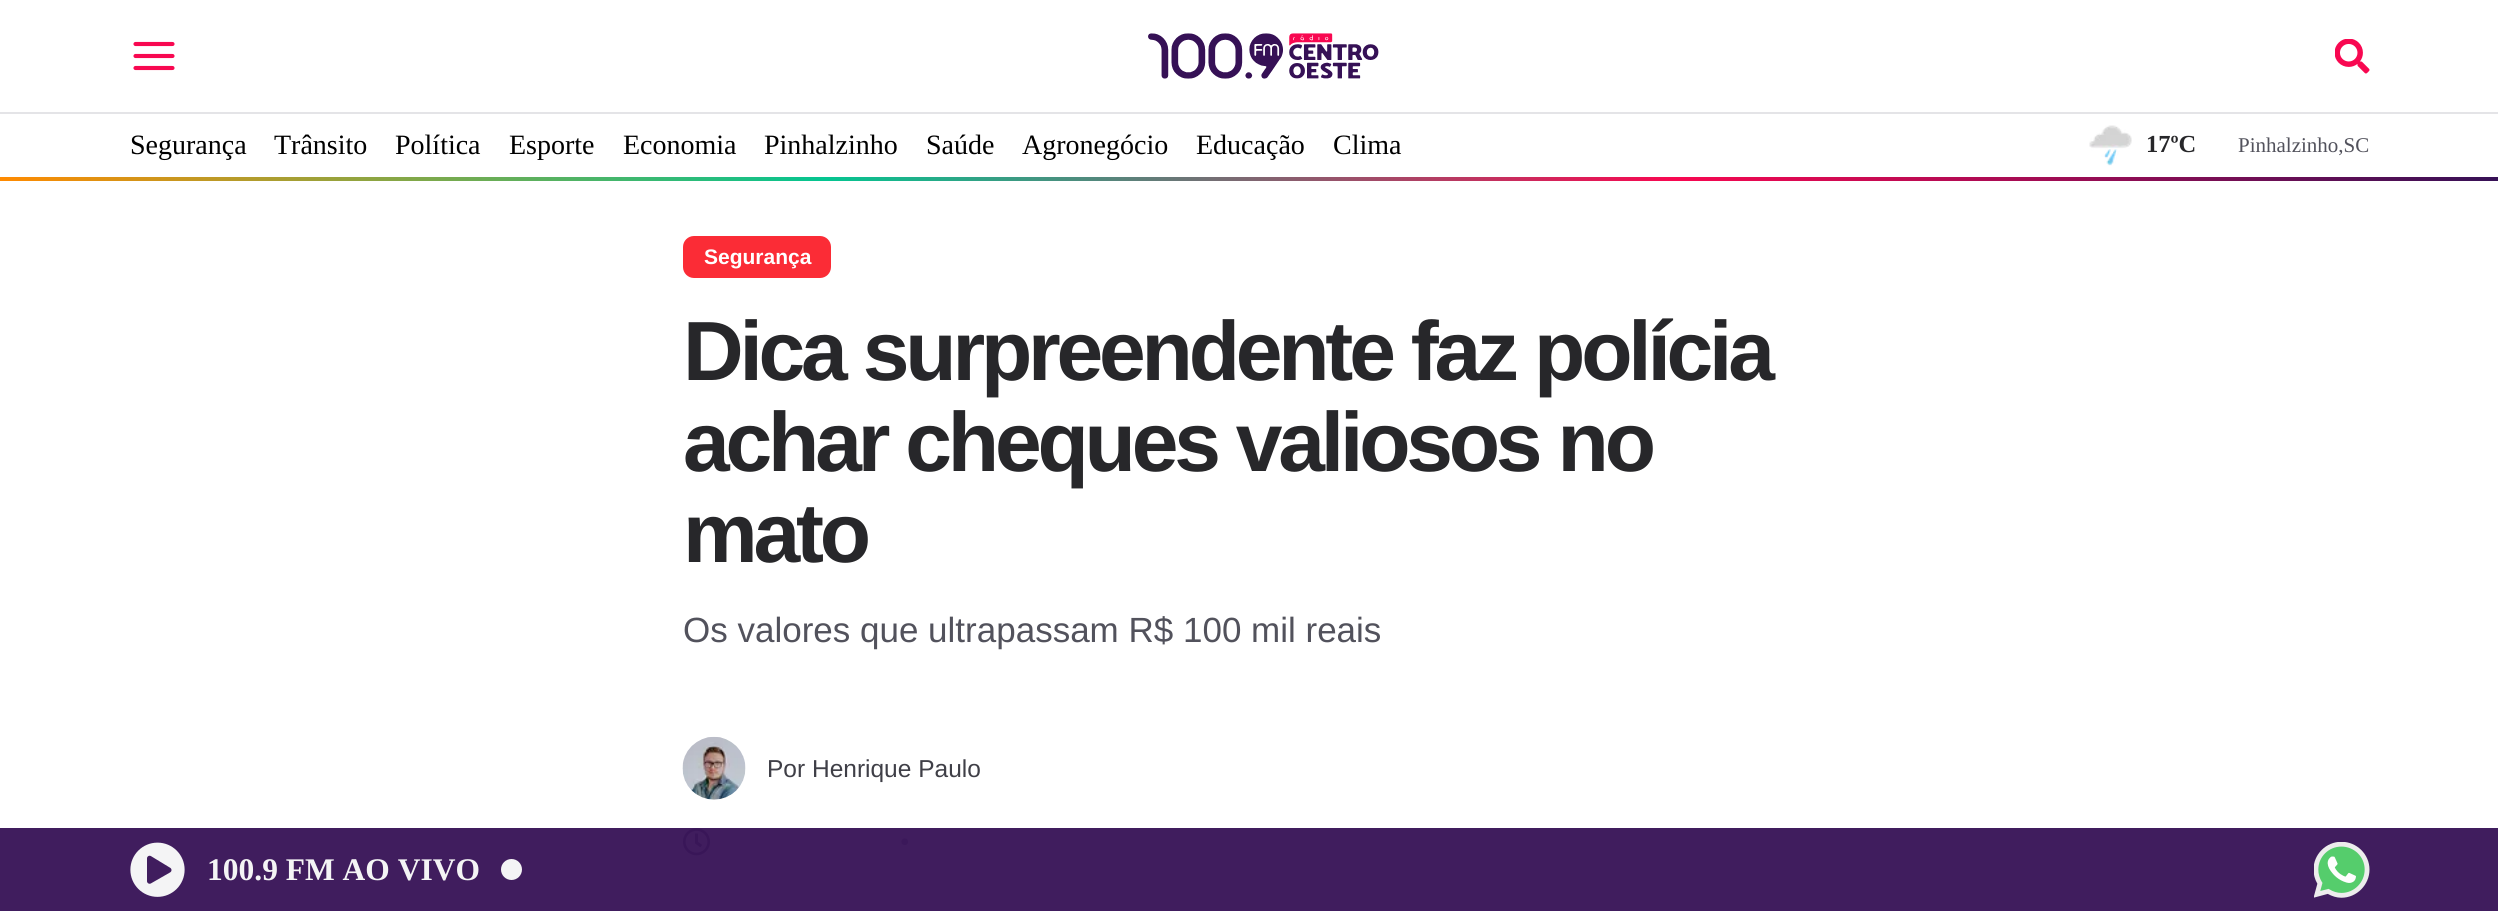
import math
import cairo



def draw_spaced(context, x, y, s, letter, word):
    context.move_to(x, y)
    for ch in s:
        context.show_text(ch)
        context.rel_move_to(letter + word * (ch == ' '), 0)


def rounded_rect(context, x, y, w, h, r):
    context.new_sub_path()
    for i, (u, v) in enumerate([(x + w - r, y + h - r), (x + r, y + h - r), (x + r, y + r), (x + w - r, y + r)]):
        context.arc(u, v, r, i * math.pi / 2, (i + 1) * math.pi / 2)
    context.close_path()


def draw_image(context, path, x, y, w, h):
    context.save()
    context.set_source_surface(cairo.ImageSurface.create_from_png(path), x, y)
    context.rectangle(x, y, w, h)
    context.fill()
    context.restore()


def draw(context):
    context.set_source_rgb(1, 1, 1)
    context.paint()
    context.set_source_rgb(64 / 255, 29 / 255, 94 / 255)
    context.rectangle(0, 828, 2498, 83)
    context.fill()
    context.set_source_rgb(228 / 255, 228 / 255, 231 / 255)
    context.rectangle(0, 112, 2498, 2)
    context.fill()
    context.new_path()
    context.move_to(135.5, 56)
    context.line_to(172.5, 56)
    context.move_to(135.5, 44)
    context.line_to(172.5, 44)
    context.move_to(135.5, 68)
    context.line_to(172.5, 68)
    context.set_source_rgb(248 / 255, 8 / 255, 81 / 255)
    context.set_line_width(4.1)
    context.set_line_cap(cairo.LineCap.ROUND)
    context.set_line_join(cairo.LineJoin.ROUND)
    context.stroke()
    draw_image(context, "images/1.png", 1148, 33, 231, 46)
    draw_image(context, "images/2.png", 2335, 39, 35, 35)
    draw_image(context, "images/3.png", 2089, 125, 43, 41)
    gradient = cairo.LinearGradient(0, 179, 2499, 178)
    gradient.add_color_stop_rgba(0, 1, 138 / 255, 0, 1)
    gradient.add_color_stop_rgba(0.33, 4 / 255, 197 / 255, 145 / 255, 1)
    gradient.add_color_stop_rgba(0.67, 248 / 255, 8 / 255, 81 / 255, 1)
    gradient.add_color_stop_rgba(1, 54 / 255, 17 / 255, 86 / 255, 1)
    context.set_source(gradient)
    context.rectangle(0, 177, 2498, 4)
    context.fill()
    context.set_source_rgb(251 / 255, 44 / 255, 54 / 255)
    rounded_rect(context, 683, 236, 148, 42, 11)
    context.fill()
    draw_image(context, "images/4.png", 682, 736, 64, 64)
    draw_image(context, "images/5.png", 683, 828, 28, 28)
    draw_image(context, "images/6.png", 901, 838, 7, 7)
    draw_image(context, "images/7.png", 130, 842, 55, 55)
    context.set_source_rgb(244 / 255, 244 / 255, 245 / 255)
    context.arc(511.5, 869.5, 10.5, 0, 2 * math.pi)
    context.fill()
    draw_image(context, "images/8.png", 2314, 842, 56, 56)
    context.select_font_face("Liberation Serif")
    context.set_font_size(28)
    context.set_source_rgb(0, 0, 0)
    context.move_to(130, 154)
    context.show_text("Segurança")
    context.move_to(274, 154)
    context.show_text("Trânsito")
    context.move_to(395, 154)
    context.show_text("Política")
    context.move_to(509, 154)
    context.show_text("Esporte")
    context.move_to(623, 154)
    context.show_text("Economia")
    context.move_to(764, 154)
    context.show_text("Pinhalzinho")
    context.move_to(926, 154)
    context.show_text("Saúde")
    context.move_to(1022, 154)
    context.show_text("Agronegócio")
    context.move_to(1196, 154)
    context.show_text("Educação")
    context.move_to(1333, 154)
    context.show_text("Clima")
    context.select_font_face("Liberation Serif", cairo.FontSlant.NORMAL, cairo.FontWeight.BOLD)
    context.set_font_size(24.5)
    context.set_source_rgb(39 / 255, 39 / 255, 42 / 255)
    context.move_to(2146, 152)
    context.show_text("17ºC")
    context.select_font_face("Liberation Serif")
    context.set_font_size(21)
    context.set_source_rgb(82 / 255, 82 / 255, 92 / 255)
    context.move_to(2238, 152)
    context.show_text("Pinhalzinho,SC")
    context.select_font_face("Liberation Sans", cairo.FontSlant.NORMAL, cairo.FontWeight.BOLD)
    context.set_source_rgb(1, 1, 1)
    context.move_to(704, 264)
    context.show_text("Segurança")
    context.set_font_size(84)
    context.set_source_rgb(39 / 255, 39 / 255, 42 / 255)
    draw_spaced(context, 683, 380, "Dica surpreendente faz polícia", -4.2, 0)
    draw_spaced(context, 683, 471, "achar cheques valiosos no", -4.2, 0)
    draw_spaced(context, 683, 562, "mato", -4.2, 0)
    context.select_font_face("Liberation Sans")
    context.set_font_size(35)
    context.set_source_rgb(82 / 255, 82 / 255, 92 / 255)
    context.move_to(683, 642)
    context.show_text("Os valores que ultrapassam R$ 100 mil reais")
    context.set_font_size(24.5)
    context.set_source_rgb(63 / 255, 63 / 255, 71 / 255)
    context.move_to(767, 777)
    context.show_text("Por Henrique Paulo")
    context.select_font_face("Liberation Serif", cairo.FontSlant.NORMAL, cairo.FontWeight.BOLD)
    context.set_font_size(31.5)
    context.set_source_rgb(244 / 255, 244 / 255, 245 / 255)
    context.move_to(207, 880)
    context.show_text("100.9 FM AO VIVO")


surface = cairo.ImageSurface(cairo.Format.RGB24, 2498, 911)
context = cairo.Context(surface)
options = cairo.FontOptions()
options.set_hint_metrics(cairo.HintMetrics.OFF)
options.set_hint_style(cairo.HintStyle.NONE)
context.set_font_options(options)
context.set_miter_limit(4)
draw(context)
surface.write_to_png("out.png")
